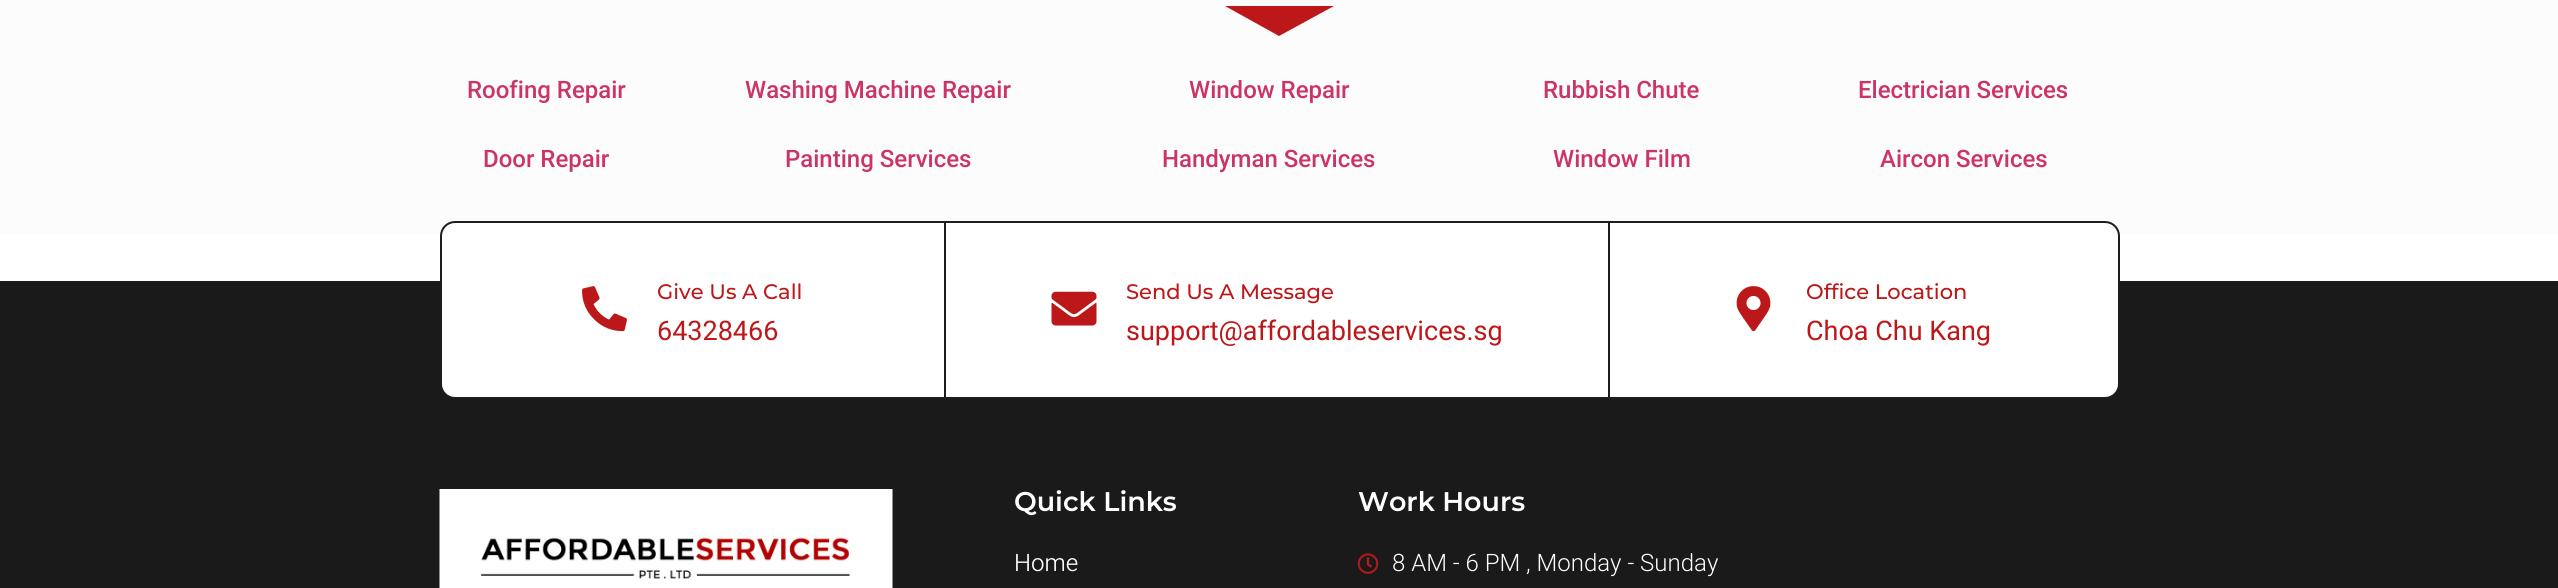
import math
import cairo



def rounded_rect(context, x, y, w, h, r):
    context.new_sub_path()
    for i, (u, v) in enumerate([(x + w - r, y + h - r), (x + r, y + h - r), (x + r, y + r), (x + w - r, y + r)]):
        context.arc(u, v, r, i * math.pi / 2, (i + 1) * math.pi / 2)
    context.close_path()


def draw_image(context, path, x, y, w, h):
    context.save()
    context.set_source_surface(cairo.ImageSurface.create_from_png(path), x, y)
    context.rectangle(x, y, w, h)
    context.fill()
    context.restore()


def draw(context):
    context.set_source_rgb(1, 1, 1)
    context.paint()
    context.set_source_rgb(252 / 255, 252 / 255, 252 / 255)
    context.rectangle(0, 0, 2558, 233)
    context.fill()
    context.set_source_rgb(189 / 255, 24 / 255, 25 / 255)
    context.new_path()
    context.move_to(1279, 36)
    context.line_to(1225, 6)
    context.line_to(1334, 6)
    context.close_path()
    context.fill()
    context.set_source_rgb(26 / 255, 26 / 255, 26 / 255)
    context.rectangle(0, 281, 2558, 307)
    context.fill()
    context.set_source_rgb(1, 1, 1)
    rounded_rect(context, 441, 222, 1678, 176, 14)
    context.fill_preserve()
    context.set_source_rgb(29 / 255, 29 / 255, 29 / 255)
    context.stroke()
    draw_image(context, "images/1.png", 582, 286, 45, 46)
    context.rectangle(1608, 222, 2, 176)
    context.fill()
    context.rectangle(944, 222, 2, 176)
    context.fill()
    draw_image(context, "images/2.png", 1051, 291, 46, 35)
    draw_image(context, "images/3.png", 1736, 286, 35, 46)
    draw_image(context, "images/4.png", 439, 489, 454, 99)
    draw_image(context, "images/5.png", 1357, 553, 22, 21)
    context.select_font_face("Roboto Medium")
    context.set_font_size(24)
    context.set_source_rgb(204 / 255, 51 / 255, 102 / 255)
    context.move_to(467, 98)
    context.show_text("Roofing Repair")
    context.move_to(483, 167)
    context.show_text("Door Repair")
    context.move_to(745, 98)
    context.show_text("Washing Machine Repair")
    context.move_to(785, 167)
    context.show_text("Painting Services")
    context.move_to(1189, 98)
    context.show_text("Window Repair")
    context.move_to(1162, 167)
    context.show_text("Handyman Services")
    context.move_to(1543, 98)
    context.show_text("Rubbish Chute")
    context.move_to(1553, 167)
    context.show_text("Window Film")
    context.move_to(1858, 98)
    context.show_text("Electrician Services")
    context.move_to(1880, 167)
    context.show_text("Aircon Services")
    context.select_font_face("Montserrat Medium")
    context.set_font_size(21)
    context.set_source_rgb(189 / 255, 24 / 255, 25 / 255)
    context.move_to(657, 299)
    context.show_text("Give Us A Call")
    context.select_font_face("Heebo")
    context.set_font_size(27)
    context.move_to(657, 340)
    context.show_text("64328466")
    context.select_font_face("Montserrat Medium")
    context.set_font_size(21)
    context.move_to(1126, 299)
    context.show_text("Send Us A Message")
    context.select_font_face("Heebo")
    context.set_font_size(27)
    context.move_to(1126, 340)
    context.show_text("support@affordableservices.sg")
    context.select_font_face("Montserrat Medium")
    context.set_font_size(21)
    context.move_to(1806, 299)
    context.show_text("Office Location")
    context.select_font_face("Heebo")
    context.set_font_size(27)
    context.move_to(1806, 340)
    context.show_text("Choa Chu Kang")
    context.select_font_face("Montserrat SemiBold")
    context.set_source_rgb(1, 1, 1)
    context.move_to(1014, 511)
    context.show_text("Quick Links")
    context.select_font_face("Heebo Light")
    context.set_font_size(24)
    context.move_to(1014, 571)
    context.show_text("Home")
    context.select_font_face("Montserrat SemiBold")
    context.set_font_size(27)
    context.move_to(1358, 511)
    context.show_text("Work Hours")
    context.select_font_face("Roboto Light")
    context.set_font_size(24)
    context.move_to(1392, 571)
    context.show_text("8 AM - 6 PM , Monday - Sunday")


surface = cairo.ImageSurface(cairo.Format.RGB24, 2558, 588)
context = cairo.Context(surface)
options = cairo.FontOptions()
options.set_hint_metrics(cairo.HintMetrics.OFF)
options.set_hint_style(cairo.HintStyle.NONE)
context.set_font_options(options)
context.set_miter_limit(4)
draw(context)
surface.write_to_png("out.png")
